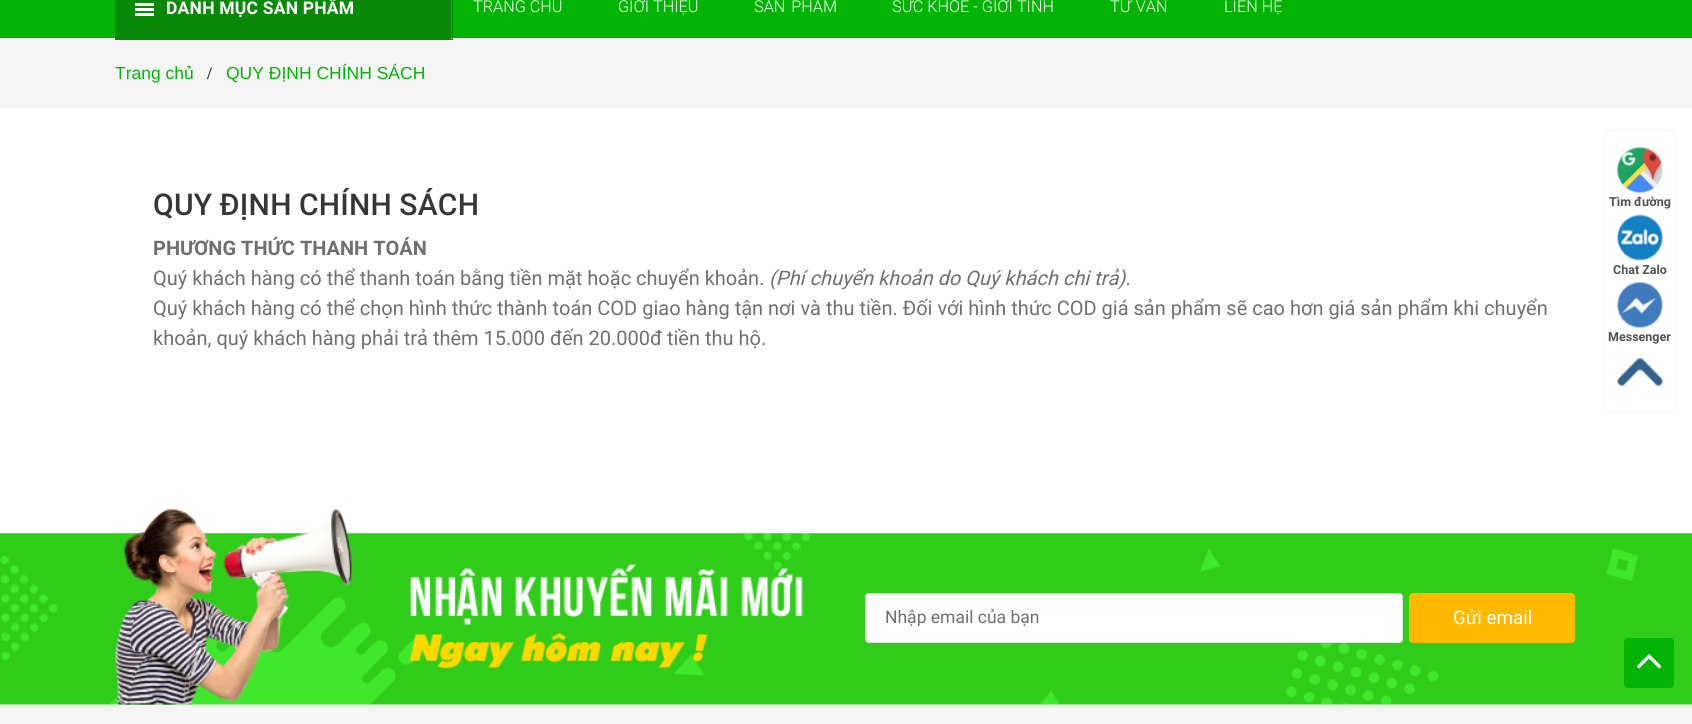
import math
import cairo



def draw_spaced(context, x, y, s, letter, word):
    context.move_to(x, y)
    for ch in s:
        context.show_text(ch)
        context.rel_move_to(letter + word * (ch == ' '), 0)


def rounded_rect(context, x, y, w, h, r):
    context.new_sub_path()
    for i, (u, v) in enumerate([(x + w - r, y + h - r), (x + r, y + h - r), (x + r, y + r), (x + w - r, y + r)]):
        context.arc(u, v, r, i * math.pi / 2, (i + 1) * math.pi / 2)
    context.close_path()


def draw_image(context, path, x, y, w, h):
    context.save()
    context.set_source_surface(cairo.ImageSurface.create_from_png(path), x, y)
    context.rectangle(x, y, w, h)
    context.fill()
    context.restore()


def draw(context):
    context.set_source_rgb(1, 1, 1)
    context.paint()
    context.set_source_rgb(4 / 255, 180 / 255, 4 / 255)
    context.rectangle(0, 0, 1692, 38)
    context.fill()
    context.rectangle(115.5, -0.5, 337, 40)
    context.set_source_rgb(8 / 255, 138 / 255, 8 / 255)
    context.set_line_width(1)
    context.stroke()
    context.rectangle(116, 0, 335, 39)
    context.fill()
    context.set_source_rgb(1, 1, 1)
    context.rectangle(135, 8, 19, 3)
    context.fill()
    context.rectangle(135, 3, 19, 3)
    context.fill()
    context.rectangle(135, 13, 19, 3)
    context.fill()
    context.set_source_rgb(245 / 255, 245 / 255, 245 / 255)
    context.rectangle(0, 40, 1692, 68)
    context.fill()
    rounded_rect(context, 1604.5, 130.5, 71, 282, 5.5)
    context.set_source_rgb(242 / 255, 242 / 255, 242 / 255)
    context.stroke()
    draw_image(context, "images/1.png", 1617, 147, 46, 46)
    draw_image(context, "images/2.png", 1617, 214, 47, 47)
    draw_image(context, "images/3.png", 1617, 282, 47, 46)
    draw_image(context, "images/4.png", 1617, 357, 47, 30)
    draw_image(context, "images/5.png", 0, 533, 1692, 172)
    draw_image(context, "images/6.png", 115, 508, 688, 197)
    context.set_source_rgb(1, 1, 1)
    rounded_rect(context, 865.5, 593.5, 537, 49, 3.5)
    context.fill_preserve()
    context.set_source_rgb(225 / 255, 225 / 255, 225 / 255)
    context.stroke()
    context.set_source_rgb(1, 186 / 255, 0)
    rounded_rect(context, 1409, 593, 166, 50, 4)
    context.fill()
    context.set_source_rgb(4 / 255, 180 / 255, 4 / 255)
    rounded_rect(context, 1624, 638, 50, 50, 4)
    context.fill()
    draw_image(context, "images/7.png", 1636, 654, 26, 15)
    context.set_source_rgb(245 / 255, 245 / 255, 245 / 255)
    context.rectangle(0, 705, 1692, 19)
    context.fill()
    context.select_font_face("Roboto", cairo.FontSlant.NORMAL, cairo.FontWeight.BOLD)
    context.set_font_size(17.5)
    context.set_source_rgb(1, 1, 1)
    draw_spaced(context, 166, 14, "DANH MỤC SẢN PHẨM", 0.2, 0)
    context.select_font_face("Roboto Light")
    context.set_font_size(16.25)
    context.move_to(473, 12)
    context.show_text("TRANG CHỦ")
    context.move_to(618, 12)
    context.show_text("GIỚI THIỆU")
    draw_spaced(context, 754, 12, "SẢN PHẨM", 0, 2)
    context.move_to(892, 12)
    context.show_text("SỨC KHỎE - GIỚI TÍNH")
    draw_spaced(context, 1110, 12, "TƯ VẤN", 0, 1)
    context.move_to(1224, 12)
    context.show_text("LIÊN HỆ")
    context.select_font_face("Liberation Sans")
    context.set_font_size(17.5)
    context.set_source_rgb(4 / 255, 180 / 255, 4 / 255)
    context.move_to(115, 79)
    context.show_text("Trang chủ")
    context.select_font_face("Liberation Serif", cairo.FontSlant.NORMAL, cairo.FontWeight.BOLD)
    context.set_source_rgb(50 / 255, 60 / 255, 63 / 255)
    context.move_to(207, 79)
    context.show_text("/")
    context.select_font_face("Liberation Sans")
    context.set_source_rgb(4 / 255, 180 / 255, 4 / 255)
    context.move_to(226, 79)
    context.show_text("QUY ĐỊNH CHÍNH SÁCH")
    context.select_font_face("Roboto Medium")
    context.set_font_size(30)
    context.set_source_rgb(54 / 255, 54 / 255, 54 / 255)
    draw_spaced(context, 153, 215, "QUY ĐỊNH CHÍNH SÁCH", 0.25, -0.5)
    context.select_font_face("Roboto", cairo.FontSlant.NORMAL, cairo.FontWeight.BOLD)
    context.set_font_size(20)
    context.set_source_rgb(112 / 255, 112 / 255, 112 / 255)
    context.move_to(153, 255)
    context.show_text("PHƯƠNG THỨC THANH TOÁN")
    context.select_font_face("Roboto")
    context.move_to(153, 285)
    context.show_text("Quý khách hàng có thể thanh toán bằng tiền mặt hoặc chuyển khoản.")
    context.select_font_face("Roboto", cairo.FontSlant.ITALIC)
    context.move_to(769, 285)
    context.show_text("(Phí chuyển khoản do Quý khách chi trả).")
    context.select_font_face("Roboto")
    context.move_to(153, 315)
    context.show_text("Quý khách hàng có thể chọn hình thức thành toán COD giao hàng tận nơi và thu tiền. Đối với hình thức COD giá sản phẩm sẽ cao hơn giá sản phẩm khi chuyển")
    context.move_to(153, 345)
    context.show_text("khoản, quý khách hàng phải trả thêm 15.000 đến 20.000đ tiền thu hộ.")
    context.select_font_face("Roboto", cairo.FontSlant.NORMAL, cairo.FontWeight.BOLD)
    context.set_font_size(12.5)
    context.set_source_rgb(81 / 255, 81 / 255, 81 / 255)
    context.move_to(1609, 206)
    context.show_text("Tìm đường")
    context.move_to(1613, 274)
    context.show_text("Chat Zalo")
    context.move_to(1608, 341)
    context.show_text("Messenger")
    context.save()
    context.rectangle(885, 606, 498, 20)
    context.clip()
    context.select_font_face("Roboto")
    context.set_font_size(17.5)
    context.set_source_rgb(112 / 255, 112 / 255, 112 / 255)
    context.move_to(885, 623)
    context.show_text("Nhập email của bạn")
    context.restore()
    context.select_font_face("Roboto")
    context.set_font_size(18.75)
    context.set_source_rgb(1, 1, 1)
    context.move_to(1453, 624)
    context.show_text("Gửi email")


surface = cairo.ImageSurface(cairo.Format.RGB24, 1692, 724)
context = cairo.Context(surface)
options = cairo.FontOptions()
options.set_hint_metrics(cairo.HintMetrics.OFF)
options.set_hint_style(cairo.HintStyle.NONE)
context.set_font_options(options)
context.set_miter_limit(4)
draw(context)
surface.write_to_png("out.png")
